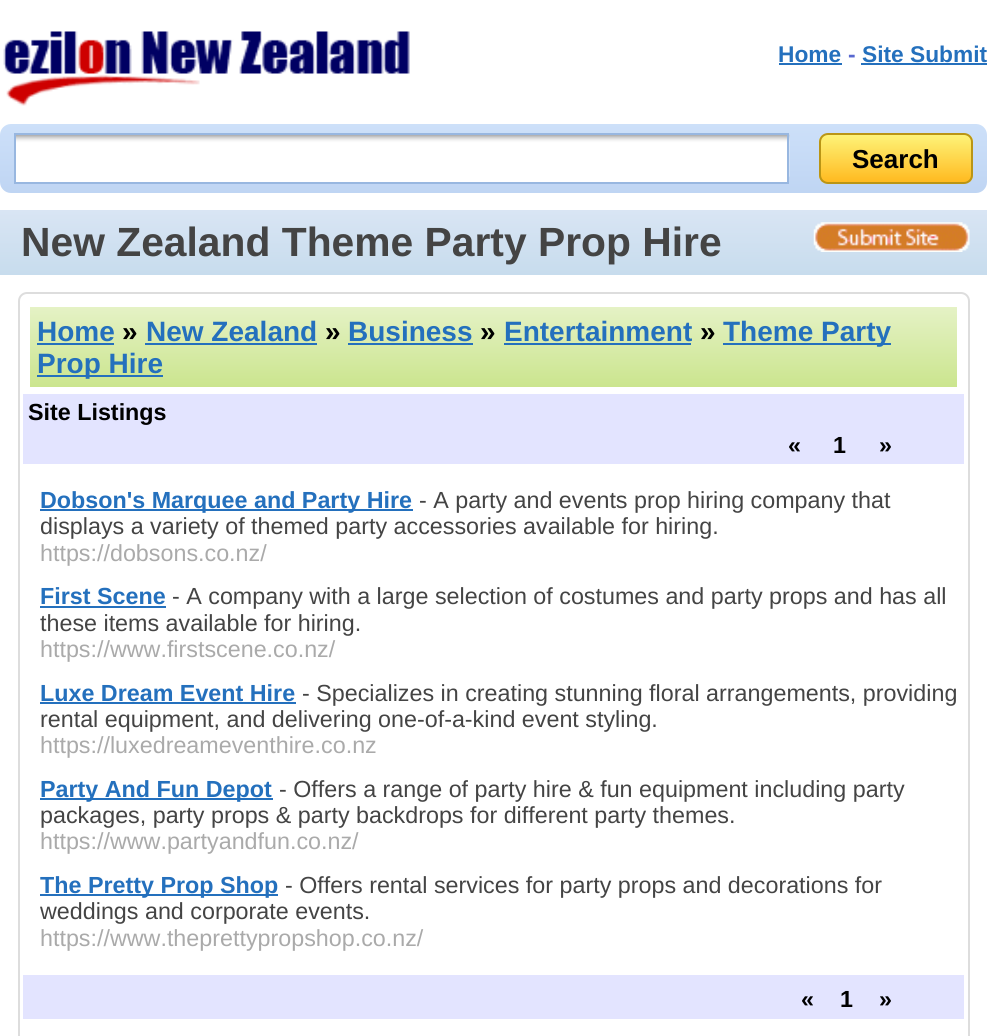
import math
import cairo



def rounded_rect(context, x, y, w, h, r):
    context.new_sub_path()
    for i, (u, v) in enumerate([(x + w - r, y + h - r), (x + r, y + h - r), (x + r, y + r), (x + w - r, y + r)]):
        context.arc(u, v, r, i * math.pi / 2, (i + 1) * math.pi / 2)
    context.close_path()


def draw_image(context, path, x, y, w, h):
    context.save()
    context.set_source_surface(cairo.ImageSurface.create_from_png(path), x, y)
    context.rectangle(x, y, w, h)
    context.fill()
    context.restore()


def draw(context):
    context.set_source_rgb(1, 1, 1)
    context.paint()
    draw_image(context, "images/1.png", 3, 31, 407, 75)
    context.set_source_rgb(36 / 255, 112 / 255, 189 / 255)
    context.rectangle(779, 63, 63, 2)
    context.fill()
    context.rectangle(861, 63, 126, 2)
    context.fill()
    gradient = cairo.LinearGradient(494, 124, 494, 193)
    gradient.add_color_stop_rgba(0, 205 / 255, 224 / 255, 249 / 255, 1)
    gradient.add_color_stop_rgba(1, 191 / 255, 213 / 255, 243 / 255, 1)
    context.set_source(gradient)
    rounded_rect(context, 0, 124, 987, 69, 11)
    context.fill()
    context.set_source_rgb(1, 1, 1)
    context.rectangle(16, 176, 771, 6)
    context.fill()
    draw_image(context, "images/2.png", 16, 134, 774, 43)
    context.rectangle(15, 134, 773, 49)
    context.set_source_rgb(152 / 255, 183 / 255, 224 / 255)
    context.stroke()
    context.save()
    rounded_rect(context, 819, 133, 154, 51, 9)
    context.clip()
    gradient = cairo.LinearGradient(896, 135, 896, 182)
    gradient.add_color_stop_rgba(0, 254 / 255, 243 / 255, 120 / 255, 1)
    gradient.add_color_stop_rgba(1, 1, 186 / 255, 32 / 255, 1)
    context.set_source(gradient)
    context.rectangle(819, 135, 154, 47)
    context.fill()
    context.restore()
    rounded_rect(context, 820, 134, 152, 49, 8)
    context.set_source_rgb(186 / 255, 149 / 255, 21 / 255)
    context.stroke()
    gradient = cairo.LinearGradient(494, 210, 494, 275)
    gradient.add_color_stop_rgba(0, 217 / 255, 229 / 255, 244 / 255, 1)
    gradient.add_color_stop_rgba(1, 199 / 255, 220 / 255, 237 / 255, 1)
    context.set_source(gradient)
    context.rectangle(0, 210, 987, 65)
    context.fill()
    draw_image(context, "images/3.png", 813, 222, 157, 30)
    rounded_rect(context, 19, 293, 950, 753, 8)
    context.set_source_rgb(221 / 255, 221 / 255, 221 / 255)
    context.stroke()
    gradient = cairo.LinearGradient(494, 306, 494, 387)
    gradient.add_color_stop_rgba(0, 229 / 255, 242 / 255, 198 / 255, 1)
    gradient.add_color_stop_rgba(1, 203 / 255, 229 / 255, 142 / 255, 1)
    context.set_source(gradient)
    context.rectangle(30, 307, 927, 80)
    context.fill()
    context.set_source_rgb(36 / 255, 112 / 255, 189 / 255)
    context.rectangle(37, 343, 77, 2)
    context.fill()
    context.rectangle(145, 343, 172, 2)
    context.fill()
    context.rectangle(348, 343, 125, 2)
    context.fill()
    context.rectangle(504, 343, 187, 2)
    context.fill()
    context.rectangle(723, 343, 168, 2)
    context.fill()
    context.rectangle(37, 375, 126, 2)
    context.fill()
    context.set_source_rgb(227 / 255, 228 / 255, 1)
    context.rectangle(23, 394, 941, 70)
    context.fill()
    context.set_source_rgb(36 / 255, 112 / 255, 189 / 255)
    context.rectangle(40, 509, 373, 2)
    context.fill()
    context.rectangle(40, 606, 126, 2)
    context.fill()
    context.rectangle(40, 702, 256, 2)
    context.fill()
    context.rectangle(40, 798, 233, 2)
    context.fill()
    context.rectangle(40, 894, 238, 2)
    context.fill()
    context.set_source_rgb(227 / 255, 228 / 255, 1)
    context.rectangle(23, 975, 941, 44)
    context.fill()
    context.select_font_face("Liberation Sans", cairo.FontSlant.NORMAL, cairo.FontWeight.BOLD)
    context.set_font_size(22.75)
    context.set_source_rgb(36 / 255, 112 / 255, 189 / 255)
    context.move_to(778, 62)
    context.show_text("Home")
    context.set_source_rgb(88 / 255, 104 / 255, 208 / 255)
    context.move_to(848, 62)
    context.show_text("-")
    context.set_source_rgb(36 / 255, 112 / 255, 189 / 255)
    context.move_to(862, 62)
    context.show_text("Site Submit")
    context.set_font_size(26)
    context.set_source_rgb(0, 0, 0)
    context.move_to(852, 168)
    context.show_text("Search")
    context.set_font_size(40.8)
    context.set_source_rgb(68 / 255, 68 / 255, 68 / 255)
    context.move_to(21, 256)
    context.show_text("New Zealand Theme Party Prop Hire")
    context.set_font_size(28)
    context.set_source_rgb(36 / 255, 112 / 255, 189 / 255)
    context.move_to(37, 341)
    context.show_text("Home")
    context.set_source_rgb(0, 0, 0)
    context.move_to(122, 341)
    context.show_text("»")
    context.set_source_rgb(36 / 255, 112 / 255, 189 / 255)
    context.move_to(146, 341)
    context.show_text("New Zealand")
    context.set_source_rgb(0, 0, 0)
    context.move_to(325, 341)
    context.show_text("»")
    context.set_source_rgb(36 / 255, 112 / 255, 189 / 255)
    context.move_to(348, 341)
    context.show_text("Business")
    context.set_source_rgb(0, 0, 0)
    context.move_to(480, 341)
    context.show_text("»")
    context.set_source_rgb(36 / 255, 112 / 255, 189 / 255)
    context.move_to(504, 341)
    context.show_text("Entertainment")
    context.set_source_rgb(0, 0, 0)
    context.move_to(700, 341)
    context.show_text("»")
    context.set_source_rgb(36 / 255, 112 / 255, 189 / 255)
    context.move_to(723, 341)
    context.show_text("Theme Party")
    context.move_to(37, 373)
    context.show_text("Prop Hire")
    context.set_font_size(23.3)
    context.set_source_rgb(0, 0, 0)
    context.move_to(28, 420)
    context.show_text("Site Listings")
    context.move_to(788, 453)
    context.show_text("«")
    context.move_to(833, 453)
    context.show_text("1")
    context.move_to(879, 453)
    context.show_text("»")
    context.set_source_rgb(36 / 255, 112 / 255, 189 / 255)
    context.move_to(40, 508)
    context.show_text("Dobson's Marquee and Party Hire")
    context.select_font_face("Liberation Sans")
    context.set_source_rgb(68 / 255, 68 / 255, 68 / 255)
    context.move_to(419, 508)
    context.show_text("- A party and events prop hiring company that")
    context.move_to(40, 534)
    context.show_text("displays a variety of themed party accessories available for hiring.")
    context.set_source_rgb(170 / 255, 170 / 255, 170 / 255)
    context.move_to(40, 561)
    context.show_text("https://dobsons.co.nz/")
    context.select_font_face("Liberation Sans", cairo.FontSlant.NORMAL, cairo.FontWeight.BOLD)
    context.set_source_rgb(36 / 255, 112 / 255, 189 / 255)
    context.move_to(40, 604)
    context.show_text("First Scene")
    context.select_font_face("Liberation Sans")
    context.set_source_rgb(68 / 255, 68 / 255, 68 / 255)
    context.move_to(172, 604)
    context.show_text("- A company with a large selection of costumes and party props and has all")
    context.move_to(40, 631)
    context.show_text("these items available for hiring.")
    context.set_source_rgb(170 / 255, 170 / 255, 170 / 255)
    context.move_to(40, 657)
    context.show_text("https://www.firstscene.co.nz/")
    context.select_font_face("Liberation Sans", cairo.FontSlant.NORMAL, cairo.FontWeight.BOLD)
    context.set_source_rgb(36 / 255, 112 / 255, 189 / 255)
    context.move_to(40, 701)
    context.show_text("Luxe Dream Event Hire")
    context.select_font_face("Liberation Sans")
    context.set_source_rgb(68 / 255, 68 / 255, 68 / 255)
    context.move_to(302, 701)
    context.show_text("- Specializes in creating stunning floral arrangements, providing")
    context.move_to(40, 727)
    context.show_text("rental equipment, and delivering one-of-a-kind event styling.")
    context.set_source_rgb(170 / 255, 170 / 255, 170 / 255)
    context.move_to(40, 753)
    context.show_text("https://luxedreameventhire.co.nz")
    context.select_font_face("Liberation Sans", cairo.FontSlant.NORMAL, cairo.FontWeight.BOLD)
    context.set_source_rgb(36 / 255, 112 / 255, 189 / 255)
    context.move_to(40, 797)
    context.show_text("Party And Fun Depot")
    context.select_font_face("Liberation Sans")
    context.set_source_rgb(68 / 255, 68 / 255, 68 / 255)
    context.move_to(279, 797)
    context.show_text("- Offers a range of party hire & fun equipment including party")
    context.move_to(40, 823)
    context.show_text("packages, party props & party backdrops for different party themes.")
    context.set_source_rgb(170 / 255, 170 / 255, 170 / 255)
    context.move_to(40, 849)
    context.show_text("https://www.partyandfun.co.nz/")
    context.select_font_face("Liberation Sans", cairo.FontSlant.NORMAL, cairo.FontWeight.BOLD)
    context.set_source_rgb(36 / 255, 112 / 255, 189 / 255)
    context.move_to(40, 893)
    context.show_text("The Pretty Prop Shop")
    context.select_font_face("Liberation Sans")
    context.set_source_rgb(68 / 255, 68 / 255, 68 / 255)
    context.move_to(285, 893)
    context.show_text("- Offers rental services for party props and decorations for")
    context.move_to(40, 919)
    context.show_text("weddings and corporate events.")
    context.set_source_rgb(170 / 255, 170 / 255, 170 / 255)
    context.move_to(40, 946)
    context.show_text("https://www.theprettypropshop.co.nz/")
    context.select_font_face("Liberation Sans", cairo.FontSlant.NORMAL, cairo.FontWeight.BOLD)
    context.set_source_rgb(0, 0, 0)
    context.move_to(801, 1007)
    context.show_text("«")
    context.move_to(840, 1007)
    context.show_text("1")
    context.move_to(879, 1007)
    context.show_text("»")


surface = cairo.ImageSurface(cairo.Format.RGB24, 987, 1036)
context = cairo.Context(surface)
options = cairo.FontOptions()
options.set_hint_metrics(cairo.HintMetrics.OFF)
options.set_hint_style(cairo.HintStyle.NONE)
context.set_font_options(options)
context.set_miter_limit(4)
draw(context)
surface.write_to_png("out.png")
